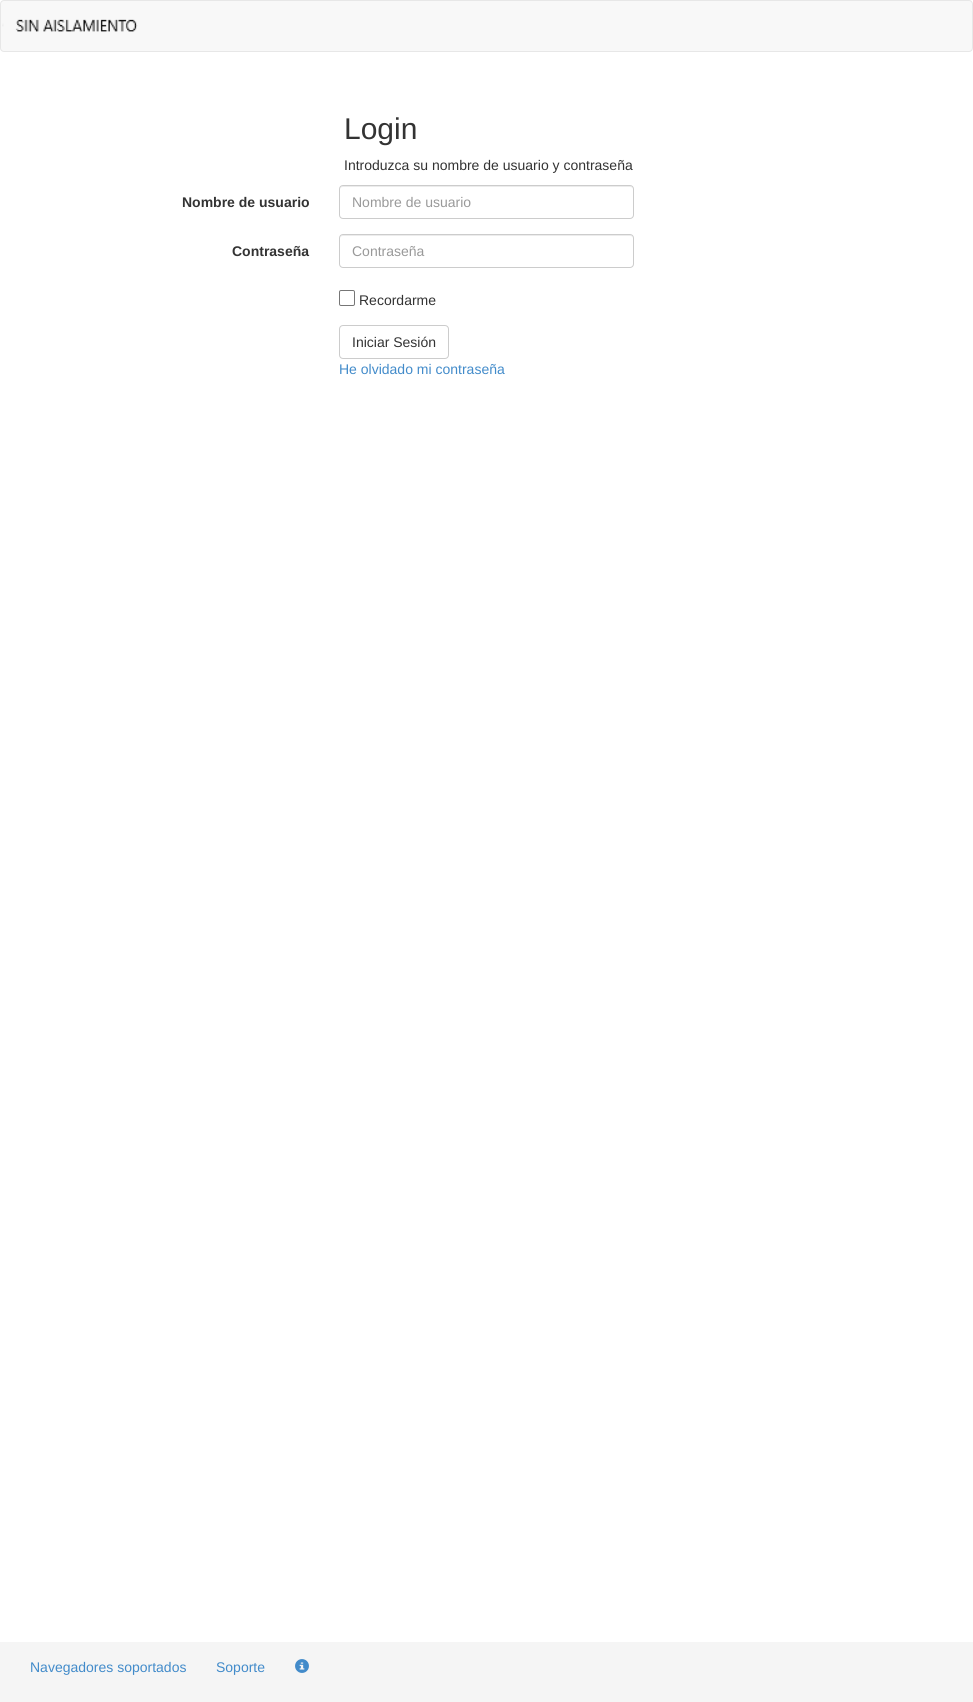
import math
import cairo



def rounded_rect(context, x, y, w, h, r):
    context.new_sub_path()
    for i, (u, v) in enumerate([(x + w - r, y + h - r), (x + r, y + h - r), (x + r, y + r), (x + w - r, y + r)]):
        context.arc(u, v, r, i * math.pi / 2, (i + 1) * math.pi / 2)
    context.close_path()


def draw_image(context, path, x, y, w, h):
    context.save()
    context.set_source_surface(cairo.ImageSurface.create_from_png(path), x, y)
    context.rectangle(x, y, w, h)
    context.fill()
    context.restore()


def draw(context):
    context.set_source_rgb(1, 1, 1)
    context.paint()
    context.set_source_rgb(248 / 255, 248 / 255, 248 / 255)
    rounded_rect(context, 0.5, 0.5, 972, 51, 3.5)
    context.fill_preserve()
    context.set_source_rgb(231 / 255, 231 / 255, 231 / 255)
    context.set_line_width(1)
    context.stroke()
    draw_image(context, "images/1.png", 2, 19, 136, 13)
    context.set_source_rgb(236 / 255, 236 / 255, 236 / 255)
    context.new_path()
    context.move_to(343, 187)
    context.line_to(630, 187)
    context.curve_to(632, 187, 633, 188, 633, 190)
    context.curve_to(633, 188, 632, 186, 630, 186)
    context.line_to(343, 186)
    context.curve_to(341, 186, 340, 188, 340, 190)
    context.curve_to(340, 188, 341, 187, 343, 187)
    context.close_path()
    context.fill()
    rounded_rect(context, 339.5, 185.5, 294, 33, 3.5)
    context.set_source_rgb(204 / 255, 204 / 255, 204 / 255)
    context.stroke()
    context.set_source_rgb(236 / 255, 236 / 255, 236 / 255)
    context.new_path()
    context.move_to(343, 236)
    context.line_to(630, 236)
    context.curve_to(632, 236, 633, 237, 633, 239)
    context.curve_to(633, 237, 632, 235, 630, 235)
    context.line_to(343, 235)
    context.curve_to(341, 235, 340, 237, 340, 239)
    context.curve_to(340, 237, 341, 236, 343, 236)
    context.close_path()
    context.fill()
    rounded_rect(context, 339.5, 234.5, 294, 33, 3.5)
    context.set_source_rgb(204 / 255, 204 / 255, 204 / 255)
    context.stroke()
    rounded_rect(context, 339.5, 290.5, 15, 15, 1.5)
    context.set_source_rgb(118 / 255, 118 / 255, 118 / 255)
    context.stroke()
    rounded_rect(context, 339.5, 325.5, 109, 33, 3.5)
    context.set_source_rgb(204 / 255, 204 / 255, 204 / 255)
    context.stroke()
    context.set_source_rgb(245 / 255, 245 / 255, 245 / 255)
    context.rectangle(0, 1642, 973, 60)
    context.fill()
    draw_image(context, "images/2.png", 295, 1659, 14, 14)
    context.select_font_face("Liberation Sans")
    context.set_font_size(30)
    context.set_source_rgb(51 / 255, 51 / 255, 51 / 255)
    context.move_to(344, 139)
    context.show_text("Login")
    context.set_font_size(14)
    context.move_to(344, 170)
    context.show_text("Introduzca su nombre de usuario y contraseña")
    context.select_font_face("Liberation Sans", cairo.FontSlant.NORMAL, cairo.FontWeight.BOLD)
    context.move_to(182, 207)
    context.show_text("Nombre de usuario")
    context.select_font_face("Liberation Sans")
    context.set_source_rgb(153 / 255, 153 / 255, 153 / 255)
    context.move_to(352, 207)
    context.show_text("Nombre de usuario")
    context.select_font_face("Liberation Sans", cairo.FontSlant.NORMAL, cairo.FontWeight.BOLD)
    context.set_source_rgb(51 / 255, 51 / 255, 51 / 255)
    context.move_to(232, 256)
    context.show_text("Contraseña")
    context.select_font_face("Liberation Sans")
    context.set_source_rgb(153 / 255, 153 / 255, 153 / 255)
    context.move_to(352, 256)
    context.show_text("Contraseña")
    context.set_source_rgb(51 / 255, 51 / 255, 51 / 255)
    context.move_to(359, 305)
    context.show_text("Recordarme")
    context.move_to(352, 347)
    context.show_text("Iniciar Sesión")
    context.set_source_rgb(66 / 255, 139 / 255, 202 / 255)
    context.move_to(339, 374)
    context.show_text("He olvidado mi contraseña")
    context.move_to(30, 1672)
    context.show_text("Navegadores soportados")
    context.move_to(216, 1672)
    context.show_text("Soporte")


surface = cairo.ImageSurface(cairo.Format.RGB24, 973, 1702)
context = cairo.Context(surface)
options = cairo.FontOptions()
options.set_hint_metrics(cairo.HintMetrics.OFF)
options.set_hint_style(cairo.HintStyle.NONE)
context.set_font_options(options)
context.set_miter_limit(4)
draw(context)
surface.write_to_png("out.png")
